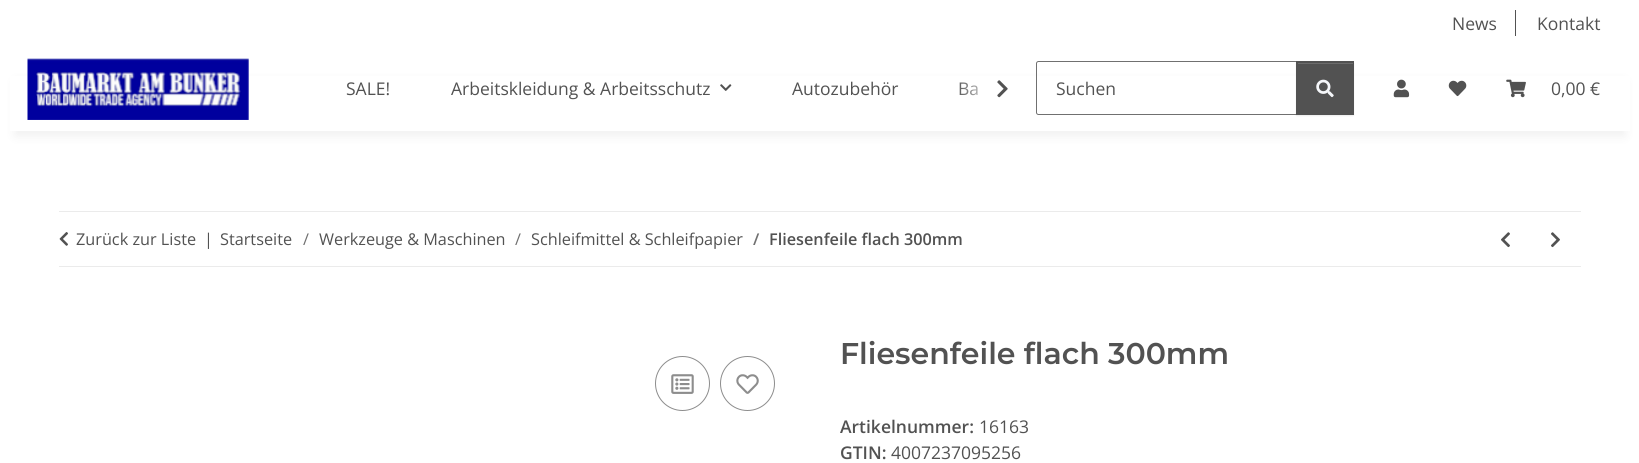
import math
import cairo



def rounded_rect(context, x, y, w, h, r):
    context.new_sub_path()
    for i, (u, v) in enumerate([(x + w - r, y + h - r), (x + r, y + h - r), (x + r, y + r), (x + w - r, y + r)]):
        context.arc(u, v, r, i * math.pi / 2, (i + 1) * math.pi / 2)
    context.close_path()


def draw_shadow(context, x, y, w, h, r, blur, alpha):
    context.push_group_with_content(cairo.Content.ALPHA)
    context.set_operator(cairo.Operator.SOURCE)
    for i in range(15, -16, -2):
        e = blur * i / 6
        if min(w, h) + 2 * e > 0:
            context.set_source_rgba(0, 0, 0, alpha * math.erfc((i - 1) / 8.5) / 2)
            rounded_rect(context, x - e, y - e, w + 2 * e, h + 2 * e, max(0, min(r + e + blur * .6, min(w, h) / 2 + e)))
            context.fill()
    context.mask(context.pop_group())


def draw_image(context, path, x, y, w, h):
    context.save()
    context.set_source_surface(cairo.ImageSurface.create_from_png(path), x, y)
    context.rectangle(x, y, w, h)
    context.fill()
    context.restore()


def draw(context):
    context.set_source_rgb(1, 1, 1)
    context.paint()
    context.set_source_rgb(82 / 255, 82 / 255, 82 / 255)
    context.rectangle(1515, 10, 1, 26)
    context.fill()
    context.set_source_rgb(0, 0, 0)
    draw_shadow(context, 15, 81, 1610, 55, 0, 5.5, 0.06)
    context.set_source_rgb(1, 1, 1)
    context.rectangle(10, 76, 1620, 55)
    context.fill()
    draw_image(context, "images/1.png", 27, 58, 222, 62)
    draw_image(context, "images/2.png", 720, 84, 12, 7)
    draw_image(context, "images/3.png", 997, 80, 11, 18)
    rounded_rect(context, 1036.5, 61.5, 261, 53, 2)
    context.set_source_rgb(112 / 255, 112 / 255, 112 / 255)
    context.set_line_width(1)
    context.stroke()
    context.set_source_rgb(0, 0, 0)
    draw_shadow(context, 1296, 63, 58, 53, 0, 0.5, 0.07)
    context.set_source_rgb(82 / 255, 82 / 255, 82 / 255)
    context.rectangle(1296, 61, 58, 54)
    context.fill()
    context.set_source_rgb(108 / 255, 108 / 255, 108 / 255)
    context.rectangle(1298, 63, 55, 1)
    context.fill()
    draw_image(context, "images/4.png", 1316, 79, 18, 19)
    draw_image(context, "images/5.png", 1393, 79, 17, 19)
    draw_image(context, "images/6.png", 1448, 80, 19, 17)
    draw_image(context, "images/7.png", 1506, 79, 20, 19)
    context.set_source_rgb(235 / 255, 235 / 255, 235 / 255)
    context.rectangle(59, 211, 1522, 1)
    context.fill()
    context.rectangle(59, 266, 1522, 1)
    context.fill()
    draw_image(context, "images/8.png", 59, 232, 9, 14)
    draw_image(context, "images/9.png", 1501, 232, 9, 16)
    draw_image(context, "images/10.png", 1551, 232, 9, 16)
    context.arc(682.5, 383.5, 27, 0, 2 * math.pi)
    context.set_source_rgb(141 / 255, 141 / 255, 141 / 255)
    context.stroke()
    draw_image(context, "images/11.png", 671, 374, 23, 20)
    context.arc(747.5, 383.5, 27, 0, 2 * math.pi)
    context.stroke()
    draw_image(context, "images/12.png", 736, 374, 23, 20)
    context.select_font_face("Open Sans")
    context.set_font_size(17.5)
    context.set_source_rgb(82 / 255, 82 / 255, 82 / 255)
    context.move_to(1452, 30)
    context.show_text("News")
    context.move_to(1537, 30)
    context.show_text("Kontakt")
    context.move_to(346, 95)
    context.show_text("SALE!")
    context.move_to(451, 95)
    context.show_text("Arbeitskleidung & Arbeitsschutz")
    context.move_to(792, 95)
    context.show_text("Autozubehör")
    context.move_to(958, 95)
    context.show_text("Ba")
    gradient = cairo.LinearGradient(956, 89, 1016, 89)
    gradient.add_color_stop_rgba(0, 1, 1, 1, 0.01)
    gradient.add_color_stop_rgba(0.7, 1, 1, 1, 1)
    context.set_source(gradient)
    context.rectangle(959, 82, 19, 14)
    context.fill()
    context.set_source_rgb(82 / 255, 82 / 255, 82 / 255)
    context.move_to(1056, 95)
    context.show_text("Suchen")
    context.move_to(1551, 95)
    context.show_text("0,00 €")
    context.set_font_size(16.25)
    context.move_to(76, 245)
    context.show_text("Zurück zur Liste")
    context.move_to(204, 245)
    context.show_text("|")
    context.move_to(220, 245)
    context.show_text("Startseite")
    context.set_source_rgb(112 / 255, 112 / 255, 112 / 255)
    context.move_to(303, 245)
    context.show_text("/")
    context.set_source_rgb(82 / 255, 82 / 255, 82 / 255)
    context.move_to(319, 245)
    context.show_text("Werkzeuge & Maschinen")
    context.set_source_rgb(112 / 255, 112 / 255, 112 / 255)
    context.move_to(515, 245)
    context.show_text("/")
    context.set_source_rgb(82 / 255, 82 / 255, 82 / 255)
    context.move_to(531, 245)
    context.show_text("Schleifmittel & Schleifpapier")
    context.select_font_face("Open Sans SemiBold")
    context.set_source_rgb(112 / 255, 112 / 255, 112 / 255)
    context.move_to(753, 245)
    context.show_text("/")
    context.set_source_rgb(82 / 255, 82 / 255, 82 / 255)
    context.move_to(769, 245)
    context.show_text("Fliesenfeile flach 300mm")
    context.select_font_face("Montserrat SemiBold")
    context.set_font_size(30)
    context.move_to(840, 364)
    context.show_text("Fliesenfeile flach 300mm")
    context.select_font_face("Open Sans SemiBold")
    context.set_font_size(17.5)
    context.move_to(840, 433)
    context.show_text("Artikelnummer:")
    context.select_font_face("Open Sans")
    context.move_to(979, 433)
    context.show_text("16163")
    context.select_font_face("Open Sans SemiBold")
    context.move_to(840, 459)
    context.show_text("GTIN:")
    context.select_font_face("Open Sans")
    context.move_to(891, 459)
    context.show_text("4007237095256")


surface = cairo.ImageSurface(cairo.Format.RGB24, 1639, 463)
context = cairo.Context(surface)
options = cairo.FontOptions()
options.set_hint_metrics(cairo.HintMetrics.OFF)
options.set_hint_style(cairo.HintStyle.NONE)
context.set_font_options(options)
context.set_miter_limit(4)
draw(context)
surface.write_to_png("out.png")
